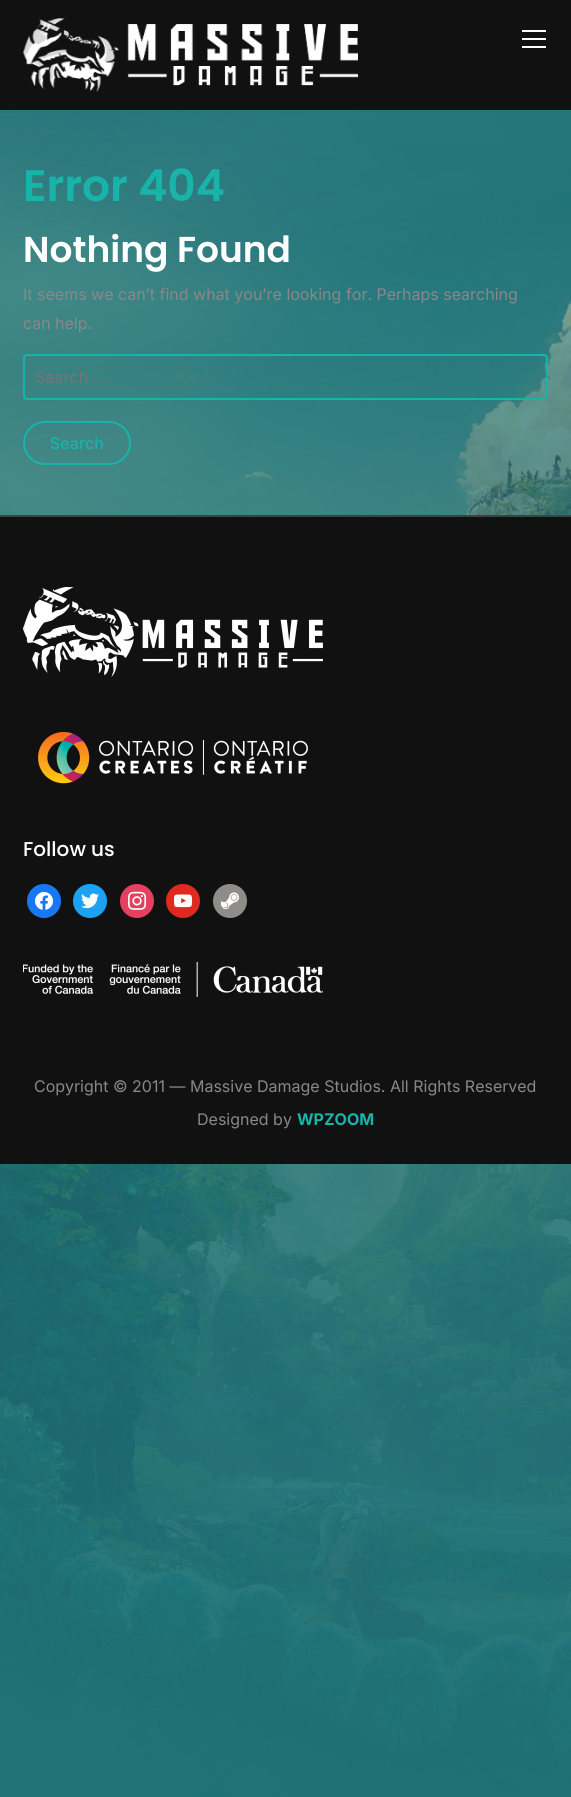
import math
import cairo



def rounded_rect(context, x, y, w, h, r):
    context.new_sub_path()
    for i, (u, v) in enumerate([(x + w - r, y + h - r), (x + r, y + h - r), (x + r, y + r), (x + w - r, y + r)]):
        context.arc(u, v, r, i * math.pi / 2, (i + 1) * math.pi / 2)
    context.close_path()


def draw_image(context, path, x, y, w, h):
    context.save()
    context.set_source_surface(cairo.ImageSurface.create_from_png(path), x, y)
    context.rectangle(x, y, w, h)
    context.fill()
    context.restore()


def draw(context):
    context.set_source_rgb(1, 1, 1)
    context.paint()
    draw_image(context, "images/1.png", 0, 110, 571, 1687)
    context.set_source_rgb(17 / 255, 17 / 255, 17 / 255)
    context.rectangle(0, 0, 571, 110)
    context.fill()
    draw_image(context, "images/2.png", 22, 18, 336, 74)
    context.set_source_rgb(1, 1, 1)
    context.rectangle(522, 30, 24, 2)
    context.fill()
    context.rectangle(522, 38, 24, 2)
    context.fill()
    context.rectangle(522, 46, 24, 2)
    context.fill()
    rounded_rect(context, 24, 355, 523, 44, 3)
    context.set_source_rgb(24 / 255, 180 / 255, 170 / 255)
    context.stroke()
    rounded_rect(context, 24, 422, 106, 42, 21)
    context.stroke()
    context.set_source_rgb(17 / 255, 17 / 255, 17 / 255)
    context.rectangle(0, 517, 571, 647)
    context.fill()
    context.set_source_rgb(65 / 255, 65 / 255, 65 / 255)
    context.rectangle(0, 515, 571, 2)
    context.fill()
    draw_image(context, "images/3.png", 23, 587, 300, 90)
    draw_image(context, "images/4.png", 38, 731, 270, 53)
    context.set_source_rgb(24 / 255, 119 / 255, 242 / 255)
    context.arc(44, 901, 17, 0, 2 * math.pi)
    context.fill()
    draw_image(context, "images/5.png", 35, 892, 18, 18)
    context.set_source_rgb(29 / 255, 161 / 255, 242 / 255)
    context.arc(90, 901, 17, 0, 2 * math.pi)
    context.fill()
    draw_image(context, "images/6.png", 81, 893, 18, 16)
    context.set_source_rgb(228 / 255, 64 / 255, 95 / 255)
    context.arc(137, 901, 17, 0, 2 * math.pi)
    context.fill()
    draw_image(context, "images/7.png", 128, 891, 18, 19)
    context.set_source_rgb(224 / 255, 42 / 255, 32 / 255)
    context.arc(183, 901, 17, 0, 2 * math.pi)
    context.fill()
    draw_image(context, "images/8.png", 174, 894, 19, 14)
    context.set_source_rgb(143 / 255, 141 / 255, 138 / 255)
    context.arc(230, 901, 17, 0, 2 * math.pi)
    context.fill()
    draw_image(context, "images/9.png", 221, 892, 18, 18)
    draw_image(context, "images/10.png", 23, 962, 300, 35)
    context.select_font_face("Poppins SemiBold")
    context.set_font_size(44)
    context.set_source_rgb(24 / 255, 180 / 255, 170 / 255)
    context.move_to(23, 201)
    context.show_text("Error 404")
    context.set_font_size(36)
    context.set_source_rgb(1, 1, 1)
    context.move_to(23, 262)
    context.show_text("Nothing Found")
    context.select_font_face("Inter")
    context.set_font_size(16)
    context.set_source_rgb(136 / 255, 136 / 255, 136 / 255)
    context.move_to(23, 300)
    context.show_text("It seems we can’t find what you’re looking for. Perhaps searching")
    context.move_to(23, 329)
    context.show_text("can help.")
    context.set_source_rgb(117 / 255, 117 / 255, 117 / 255)
    context.move_to(35, 383)
    context.show_text("Search …")
    context.select_font_face("Inter Medium")
    context.set_source_rgb(24 / 255, 180 / 255, 170 / 255)
    context.move_to(50, 449)
    context.show_text("Search")
    context.select_font_face("Poppins Medium")
    context.set_font_size(20)
    context.set_source_rgb(1, 1, 1)
    context.move_to(23, 856)
    context.show_text("Follow us")
    context.select_font_face("Inter")
    context.set_font_size(16)
    context.set_source_rgb(136 / 255, 136 / 255, 136 / 255)
    context.move_to(34, 1092)
    context.show_text("Copyright © 2011 — Massive Damage Studios. All Rights Reserved")
    context.move_to(197, 1125)
    context.show_text("Designed by")
    context.select_font_face("Inter", cairo.FontSlant.NORMAL, cairo.FontWeight.BOLD)
    context.set_source_rgb(24 / 255, 180 / 255, 170 / 255)
    context.move_to(297, 1125)
    context.show_text("WPZOOM")


surface = cairo.ImageSurface(cairo.Format.RGB24, 571, 1797)
context = cairo.Context(surface)
options = cairo.FontOptions()
options.set_hint_metrics(cairo.HintMetrics.OFF)
options.set_hint_style(cairo.HintStyle.NONE)
context.set_font_options(options)
context.set_miter_limit(4)
draw(context)
surface.write_to_png("out.png")
